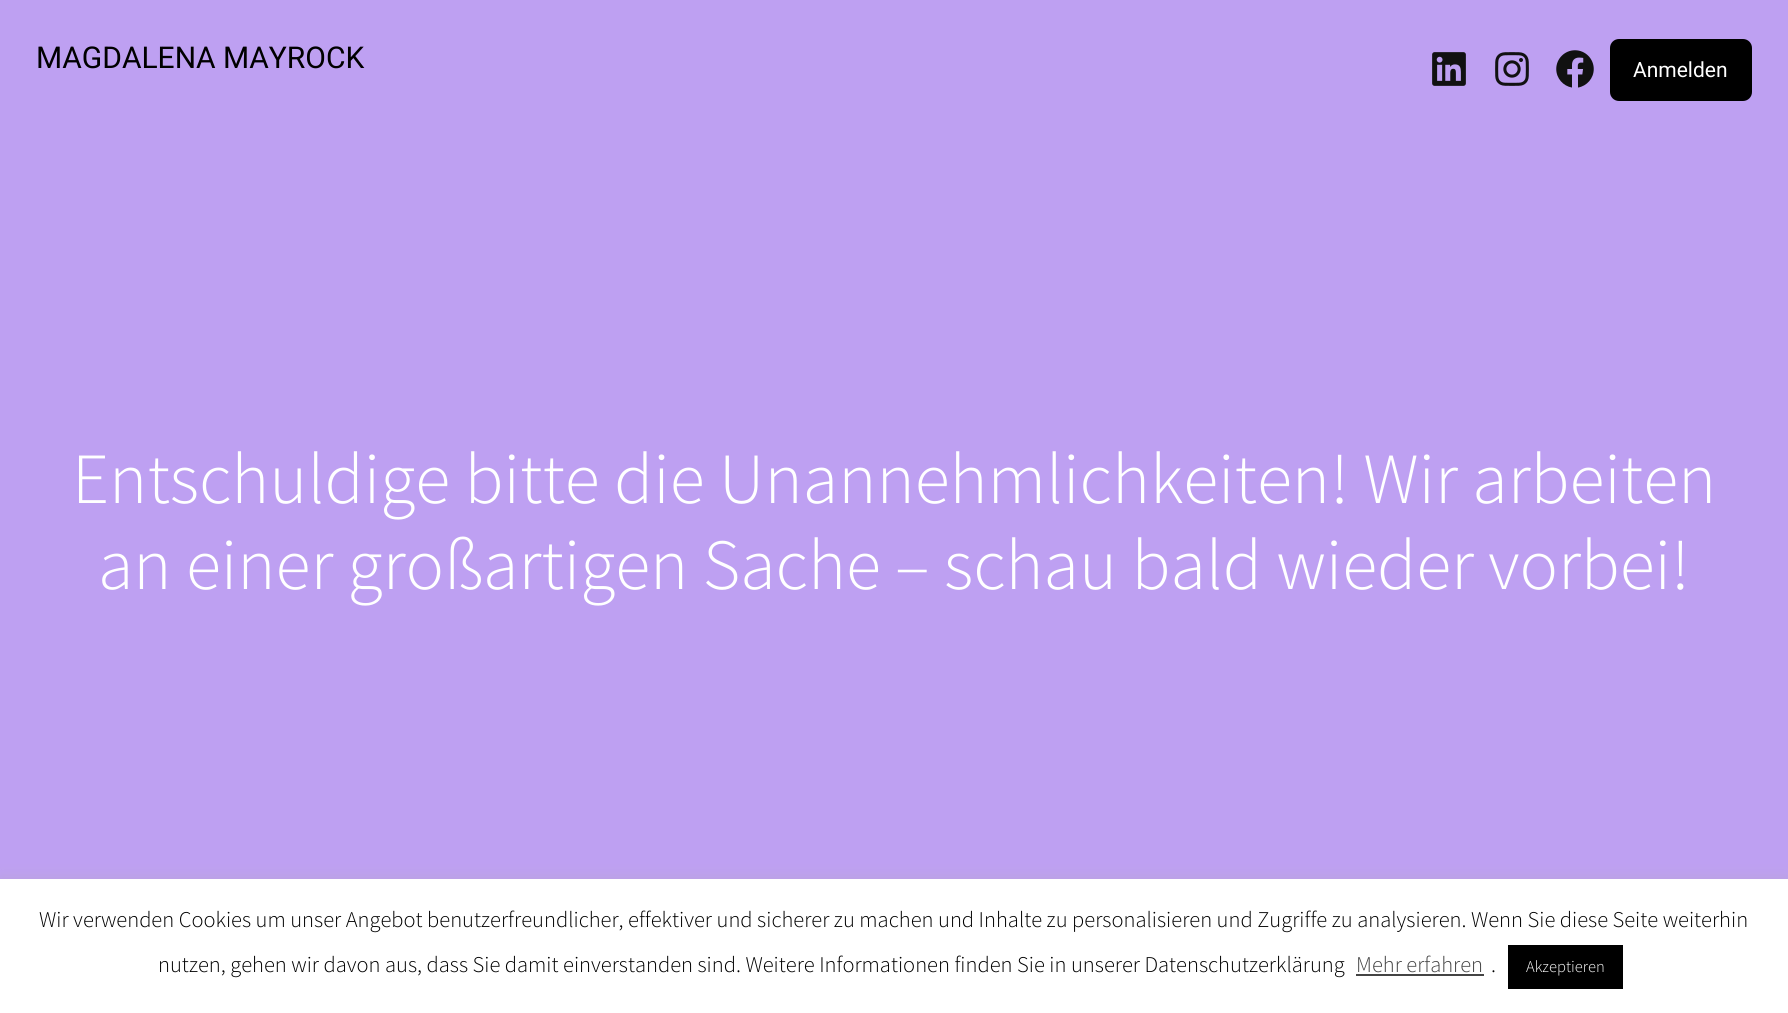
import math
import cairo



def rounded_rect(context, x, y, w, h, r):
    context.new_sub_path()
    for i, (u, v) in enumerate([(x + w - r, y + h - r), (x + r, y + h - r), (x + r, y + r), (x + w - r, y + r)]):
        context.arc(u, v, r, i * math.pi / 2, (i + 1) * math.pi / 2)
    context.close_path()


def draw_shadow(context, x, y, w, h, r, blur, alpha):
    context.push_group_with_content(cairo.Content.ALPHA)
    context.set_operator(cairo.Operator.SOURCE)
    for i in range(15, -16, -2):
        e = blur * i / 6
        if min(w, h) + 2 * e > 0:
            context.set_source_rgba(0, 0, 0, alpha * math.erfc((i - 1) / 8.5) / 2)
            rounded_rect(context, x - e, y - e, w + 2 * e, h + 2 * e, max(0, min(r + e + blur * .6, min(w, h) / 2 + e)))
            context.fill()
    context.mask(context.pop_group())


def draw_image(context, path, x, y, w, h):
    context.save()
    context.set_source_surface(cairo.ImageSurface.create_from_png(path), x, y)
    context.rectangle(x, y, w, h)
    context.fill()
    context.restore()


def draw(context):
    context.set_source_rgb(190 / 255, 160 / 255, 242 / 255)
    context.paint()
    draw_image(context, "images/1.png", 1432, 52, 34, 34)
    draw_image(context, "images/2.png", 1495, 52, 34, 34)
    draw_image(context, "images/3.png", 1556, 50, 38, 38)
    context.set_source_rgb(0, 0, 0)
    rounded_rect(context, 1610, 39, 142, 62, 9)
    context.fill()
    context.set_source_rgb(172 / 255, 171 / 255, 171 / 255)
    draw_shadow(context, 0, 878, 1788, 135, 0, 7.5, 0.3)
    context.set_source_rgb(1, 1, 1)
    context.rectangle(0, 879, 1788, 134)
    context.fill()
    context.set_source_rgb(68 / 255, 68 / 255, 68 / 255)
    context.rectangle(1356, 974, 128, 2)
    context.fill()
    context.set_source_rgb(0, 0, 0)
    context.rectangle(1508, 945, 115, 44)
    context.fill()
    context.select_font_face("Roboto")
    context.set_font_size(30)
    context.move_to(36, 68)
    context.show_text("MAGDALENA MAYROCK")
    context.set_font_size(21)
    context.set_source_rgb(1, 1, 1)
    context.move_to(1633, 77)
    context.show_text("Anmelden")
    context.select_font_face("Source Sans Pro Light")
    context.set_font_size(72)
    context.move_to(72, 503)
    context.show_text("Entschuldige bitte die Unannehmlichkeiten! Wir arbeiten")
    context.move_to(98, 589)
    context.show_text("an einer großartigen Sache – schau bald wieder vorbei!")
    context.set_font_size(22.5)
    context.set_source_rgb(0, 0, 0)
    context.move_to(39, 927)
    context.show_text("Wir verwenden Cookies um unser Angebot benutzerfreundlicher, effektiver und sicherer zu machen und Inhalte zu personalisieren und Zugriffe zu analysieren. Wenn Sie diese Seite weiterhin")
    context.move_to(158, 972)
    context.show_text("nutzen, gehen wir davon aus, dass Sie damit einverstanden sind. Weitere Informationen finden Sie in unserer Datenschutzerklärung")
    context.set_source_rgb(68 / 255, 68 / 255, 68 / 255)
    context.move_to(1356, 972)
    context.show_text("Mehr erfahren")
    context.set_source_rgb(0, 0, 0)
    context.move_to(1491, 972)
    context.show_text(".")
    context.set_font_size(16.5)
    context.set_source_rgb(1, 1, 1)
    context.move_to(1526, 972)
    context.show_text("Akzeptieren")


surface = cairo.ImageSurface(cairo.Format.RGB24, 1788, 1013)
context = cairo.Context(surface)
options = cairo.FontOptions()
options.set_hint_metrics(cairo.HintMetrics.OFF)
options.set_hint_style(cairo.HintStyle.NONE)
context.set_font_options(options)
context.set_miter_limit(4)
draw(context)
surface.write_to_png("out.png")
